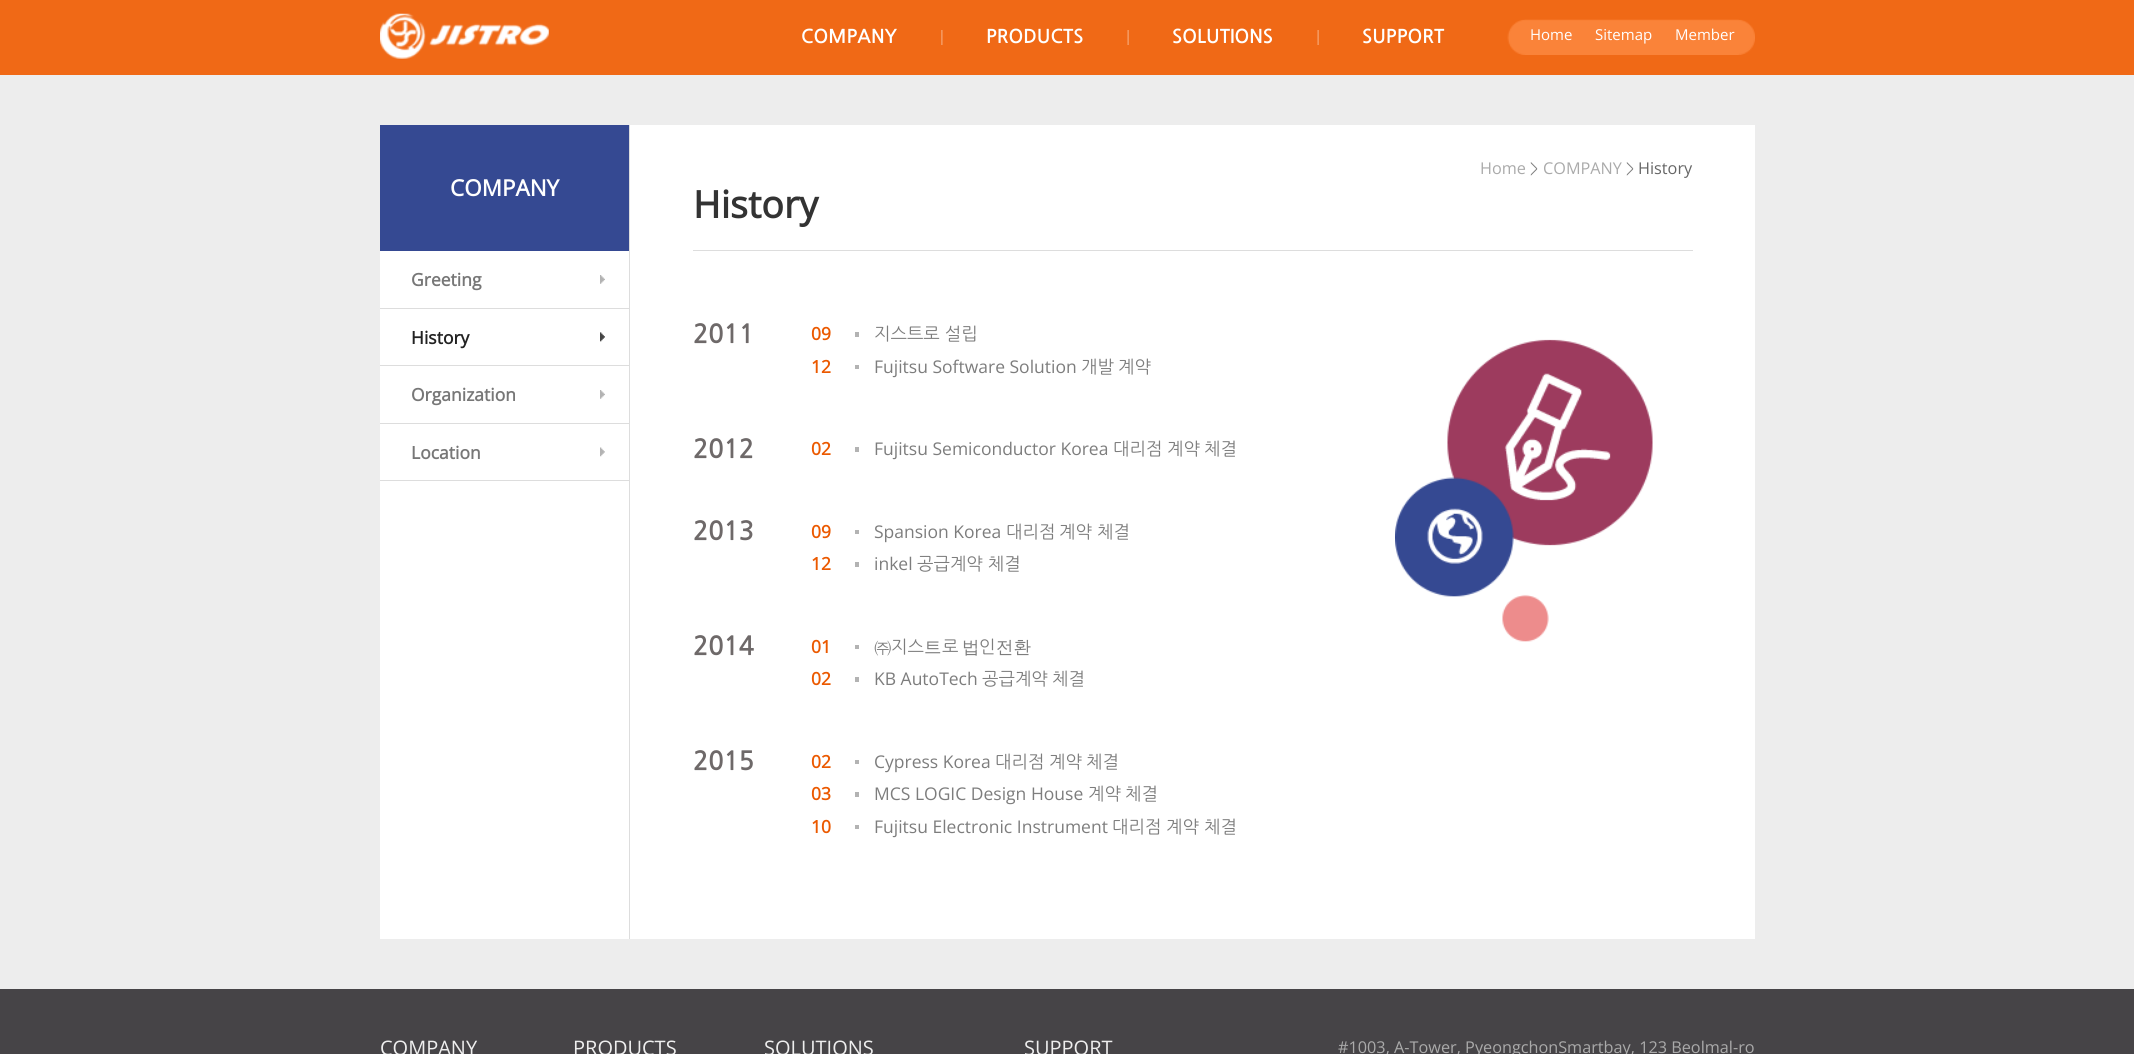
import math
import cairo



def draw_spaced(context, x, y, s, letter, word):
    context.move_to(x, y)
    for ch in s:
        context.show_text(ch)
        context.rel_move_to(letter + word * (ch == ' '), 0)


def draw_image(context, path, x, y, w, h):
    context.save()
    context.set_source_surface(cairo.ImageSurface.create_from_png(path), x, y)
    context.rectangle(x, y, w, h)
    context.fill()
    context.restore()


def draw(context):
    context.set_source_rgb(237 / 255, 237 / 255, 237 / 255)
    context.paint()
    context.set_source_rgb(240 / 255, 105 / 255, 22 / 255)
    context.rectangle(0, 0, 2134, 75)
    context.fill()
    draw_image(context, "images/1.png", 380, 13, 169, 46)
    draw_image(context, "images/2.png", 941, 30, 2, 15)
    draw_image(context, "images/3.png", 1127, 30, 2, 15)
    draw_image(context, "images/3.png", 1317, 30, 2, 15)
    draw_image(context, "images/4.png", 1507, 19, 248, 36)
    context.set_source_rgb(1, 1, 1)
    context.rectangle(380, 125, 1375, 814)
    context.fill()
    context.set_source_rgb(53 / 255, 73 / 255, 146 / 255)
    context.rectangle(380, 125, 249, 126)
    context.fill()
    draw_image(context, "images/5.png", 600, 275, 5, 9)
    context.set_source_rgb(221 / 255, 221 / 255, 221 / 255)
    context.rectangle(380, 308, 249, 1)
    context.fill()
    draw_image(context, "images/6.png", 600, 332, 5, 10)
    context.rectangle(380, 365, 249, 1)
    context.fill()
    draw_image(context, "images/7.png", 600, 332, 5, 10)
    draw_image(context, "images/5.png", 600, 390, 5, 9)
    context.rectangle(380, 423, 249, 1)
    context.fill()
    draw_image(context, "images/6.png", 600, 447, 5, 10)
    context.rectangle(380, 480, 249, 1)
    context.fill()
    context.rectangle(629, 125, 1, 814)
    context.fill()
    context.rectangle(693, 250, 1000, 1)
    context.fill()
    context.set_source_rgb(179 / 255, 179 / 255, 179 / 255)
    context.rectangle(855, 332, 4, 5)
    context.fill()
    context.rectangle(855, 365, 4, 4)
    context.fill()
    draw_image(context, "images/8.png", 1395, 339, 258, 303)
    context.rectangle(855, 447, 4, 5)
    context.fill()
    context.rectangle(855, 530, 4, 4)
    context.fill()
    context.rectangle(855, 562, 4, 5)
    context.fill()
    context.rectangle(855, 645, 4, 4)
    context.fill()
    context.rectangle(855, 677, 4, 5)
    context.fill()
    context.rectangle(855, 760, 4, 4)
    context.fill()
    context.rectangle(855, 792, 4, 5)
    context.fill()
    context.rectangle(855, 825, 4, 4)
    context.fill()
    context.set_source_rgb(70 / 255, 68 / 255, 71 / 255)
    context.rectangle(0, 989, 2134, 65)
    context.fill()
    context.select_font_face("NanumGothic", cairo.FontSlant.NORMAL, cairo.FontWeight.BOLD)
    context.set_font_size(18.75)
    context.set_source_rgb(1, 1, 1)
    context.move_to(801, 43)
    context.show_text("COMPANY")
    context.move_to(986, 43)
    context.show_text("PRODUCTS")
    context.move_to(1172, 43)
    context.show_text("SOLUTIONS")
    context.move_to(1362, 43)
    context.show_text("SUPPORT")
    context.select_font_face("Open Sans")
    context.set_font_size(15)
    context.move_to(1530, 40)
    context.show_text("Home")
    context.move_to(1595, 40)
    context.show_text("Sitemap")
    context.move_to(1675, 40)
    context.show_text("Member")
    context.select_font_face("Open Sans", cairo.FontSlant.NORMAL, cairo.FontWeight.BOLD)
    context.set_font_size(22.5)
    context.move_to(450, 196)
    context.show_text("COMPANY")
    context.set_font_size(17.5)
    context.set_source_rgb(119 / 255, 119 / 255, 119 / 255)
    context.move_to(411, 286)
    context.show_text("Greeting")
    context.set_source_rgb(34 / 255, 34 / 255, 34 / 255)
    context.move_to(411, 344)
    context.show_text("History")
    context.set_source_rgb(119 / 255, 119 / 255, 119 / 255)
    context.move_to(411, 401)
    context.show_text("Organization")
    context.move_to(411, 459)
    context.show_text("Location")
    context.select_font_face("Open Sans")
    context.set_font_size(16.25)
    context.set_source_rgb(170 / 255, 170 / 255, 170 / 255)
    context.move_to(1480, 174)
    context.show_text("Home")
    context.select_font_face("NanumGothic")
    context.set_font_size(15)
    context.set_source_rgb(125 / 255, 125 / 255, 125 / 255)
    context.move_to(1530, 174)
    context.show_text(">")
    context.select_font_face("Open Sans")
    context.set_font_size(16.25)
    context.set_source_rgb(170 / 255, 170 / 255, 170 / 255)
    context.move_to(1543, 174)
    context.show_text("COMPANY")
    context.select_font_face("NanumGothic")
    context.set_font_size(15)
    context.set_source_rgb(125 / 255, 125 / 255, 125 / 255)
    context.move_to(1626, 174)
    context.show_text(">")
    context.select_font_face("Open Sans")
    context.set_font_size(16.25)
    context.set_source_rgb(102 / 255, 102 / 255, 102 / 255)
    context.move_to(1638, 174)
    context.show_text("History")
    context.select_font_face("Open Sans", cairo.FontSlant.NORMAL, cairo.FontWeight.BOLD)
    context.set_font_size(37.5)
    context.set_source_rgb(51 / 255, 51 / 255, 51 / 255)
    context.move_to(693, 218)
    context.show_text("History")
    context.select_font_face("NanumGothic", cairo.FontSlant.NORMAL, cairo.FontWeight.BOLD)
    context.set_font_size(26)
    context.set_source_rgb(110 / 255, 105 / 255, 105 / 255)
    draw_spaced(context, 693, 343, "2011", -0.5, 0)
    context.select_font_face("Open Sans", cairo.FontSlant.NORMAL, cairo.FontWeight.BOLD)
    context.set_font_size(17.5)
    context.set_source_rgb(235 / 255, 89 / 255, 0)
    context.move_to(811, 340)
    context.show_text("09")
    context.select_font_face("NanumGothic")
    context.set_source_rgb(125 / 255, 125 / 255, 125 / 255)
    context.move_to(874, 340)
    context.show_text("지스트로 설립")
    context.select_font_face("Open Sans", cairo.FontSlant.NORMAL, cairo.FontWeight.BOLD)
    context.set_source_rgb(235 / 255, 89 / 255, 0)
    context.move_to(811, 373)
    context.show_text("12")
    context.select_font_face("Open Sans")
    context.set_source_rgb(125 / 255, 125 / 255, 125 / 255)
    context.move_to(874, 373)
    context.show_text("Fujitsu Software Solution")
    context.select_font_face("NanumGothic")
    context.move_to(1081, 373)
    context.show_text("개발")
    context.move_to(1118, 373)
    context.show_text("계약")
    context.select_font_face("NanumGothic", cairo.FontSlant.NORMAL, cairo.FontWeight.BOLD)
    context.set_font_size(26)
    context.set_source_rgb(110 / 255, 105 / 255, 105 / 255)
    draw_spaced(context, 693, 458, "2012", -0.5, 0)
    context.select_font_face("Open Sans", cairo.FontSlant.NORMAL, cairo.FontWeight.BOLD)
    context.set_font_size(17.5)
    context.set_source_rgb(235 / 255, 89 / 255, 0)
    context.move_to(811, 455)
    context.show_text("02")
    context.select_font_face("Open Sans")
    context.set_source_rgb(125 / 255, 125 / 255, 125 / 255)
    context.move_to(874, 455)
    context.show_text("Fujitsu Semiconductor Korea")
    context.select_font_face("NanumGothic")
    context.move_to(1113, 455)
    context.show_text("대리점")
    context.move_to(1167, 455)
    context.show_text("계약")
    context.move_to(1204, 455)
    context.show_text("체결")
    context.select_font_face("NanumGothic", cairo.FontSlant.NORMAL, cairo.FontWeight.BOLD)
    context.set_font_size(26)
    context.set_source_rgb(110 / 255, 105 / 255, 105 / 255)
    draw_spaced(context, 693, 540, "2013", -0.5, 0)
    context.select_font_face("Open Sans", cairo.FontSlant.NORMAL, cairo.FontWeight.BOLD)
    context.set_font_size(17.5)
    context.set_source_rgb(235 / 255, 89 / 255, 0)
    context.move_to(811, 538)
    context.show_text("09")
    context.select_font_face("Open Sans")
    context.set_source_rgb(125 / 255, 125 / 255, 125 / 255)
    context.move_to(874, 538)
    context.show_text("Spansion Korea")
    context.select_font_face("NanumGothic")
    context.move_to(1006, 538)
    context.show_text("대리점")
    context.move_to(1059, 538)
    context.show_text("계약")
    context.move_to(1097, 538)
    context.show_text("체결")
    context.select_font_face("Open Sans", cairo.FontSlant.NORMAL, cairo.FontWeight.BOLD)
    context.set_source_rgb(235 / 255, 89 / 255, 0)
    context.move_to(811, 570)
    context.show_text("12")
    context.select_font_face("Open Sans")
    context.set_source_rgb(125 / 255, 125 / 255, 125 / 255)
    context.move_to(874, 570)
    context.show_text("inkel")
    context.select_font_face("NanumGothic")
    context.move_to(917, 570)
    context.show_text("공급계약 체결")
    context.select_font_face("NanumGothic", cairo.FontSlant.NORMAL, cairo.FontWeight.BOLD)
    context.set_font_size(26)
    context.set_source_rgb(110 / 255, 105 / 255, 105 / 255)
    draw_spaced(context, 693, 655, "2014", -0.5, 0)
    context.select_font_face("Open Sans", cairo.FontSlant.NORMAL, cairo.FontWeight.BOLD)
    context.set_font_size(17.5)
    context.set_source_rgb(235 / 255, 89 / 255, 0)
    context.move_to(811, 653)
    context.show_text("01")
    context.select_font_face("WenQuanYi Zen Hei Medium")
    context.set_source_rgb(125 / 255, 125 / 255, 125 / 255)
    context.move_to(874, 653)
    context.show_text("㈜")
    context.select_font_face("NanumGothic")
    context.move_to(891, 653)
    context.show_text("지스")
    context.select_font_face("WenQuanYi Zen Hei Medium")
    context.move_to(924, 653)
    context.show_text("트")
    context.select_font_face("NanumGothic")
    context.move_to(942, 653)
    context.show_text("로")
    context.select_font_face("WenQuanYi Zen Hei Medium")
    context.move_to(962, 653)
    context.show_text("법")
    context.select_font_face("NanumGothic")
    context.move_to(979, 653)
    context.show_text("인")
    context.select_font_face("WenQuanYi Zen Hei Medium")
    context.move_to(996, 653)
    context.show_text("전환")
    context.select_font_face("Open Sans", cairo.FontSlant.NORMAL, cairo.FontWeight.BOLD)
    context.set_source_rgb(235 / 255, 89 / 255, 0)
    context.move_to(811, 685)
    context.show_text("02")
    context.select_font_face("Open Sans")
    context.set_source_rgb(125 / 255, 125 / 255, 125 / 255)
    context.move_to(874, 685)
    context.show_text("KB AutoTech")
    context.select_font_face("NanumGothic")
    context.move_to(982, 685)
    context.show_text("공급계약")
    context.move_to(1052, 685)
    context.show_text("체결")
    context.select_font_face("NanumGothic", cairo.FontSlant.NORMAL, cairo.FontWeight.BOLD)
    context.set_font_size(26)
    context.set_source_rgb(110 / 255, 105 / 255, 105 / 255)
    draw_spaced(context, 693, 770, "2015", -0.5, 0)
    context.select_font_face("Open Sans", cairo.FontSlant.NORMAL, cairo.FontWeight.BOLD)
    context.set_font_size(17.5)
    context.set_source_rgb(235 / 255, 89 / 255, 0)
    context.move_to(811, 768)
    context.show_text("02")
    context.select_font_face("Open Sans")
    context.set_source_rgb(125 / 255, 125 / 255, 125 / 255)
    context.move_to(874, 768)
    context.show_text("Cypress Korea")
    context.select_font_face("NanumGothic")
    context.move_to(995, 768)
    context.show_text("대리점")
    context.move_to(1049, 768)
    context.show_text("계약")
    context.move_to(1086, 768)
    context.show_text("체결")
    context.select_font_face("Open Sans", cairo.FontSlant.NORMAL, cairo.FontWeight.BOLD)
    context.set_source_rgb(235 / 255, 89 / 255, 0)
    context.move_to(811, 800)
    context.show_text("03")
    context.select_font_face("Open Sans")
    context.set_source_rgb(125 / 255, 125 / 255, 125 / 255)
    context.move_to(874, 800)
    context.show_text("MCS LOGIC Design House")
    context.select_font_face("NanumGothic")
    context.move_to(1088, 800)
    context.show_text("계약")
    context.move_to(1125, 800)
    context.show_text("체결")
    context.select_font_face("Open Sans", cairo.FontSlant.NORMAL, cairo.FontWeight.BOLD)
    context.set_source_rgb(235 / 255, 89 / 255, 0)
    context.move_to(811, 833)
    context.show_text("10")
    context.select_font_face("Open Sans")
    context.set_source_rgb(125 / 255, 125 / 255, 125 / 255)
    context.move_to(874, 833)
    context.show_text("Fujitsu Electronic Instrument")
    context.select_font_face("NanumGothic")
    context.move_to(1112, 833)
    context.show_text("대리점")
    context.move_to(1166, 833)
    context.show_text("계약")
    context.move_to(1204, 833)
    context.show_text("체결")
    context.select_font_face("Open Sans")
    context.set_font_size(20)
    context.set_source_rgb(238 / 255, 238 / 255, 238 / 255)
    context.move_to(380, 1055)
    context.show_text("COMPANY")
    context.move_to(573, 1055)
    context.show_text("PRODUCTS")
    context.move_to(764, 1055)
    context.show_text("SOLUTIONS")
    context.move_to(1024, 1055)
    context.show_text("SUPPORT")
    context.set_font_size(16.25)
    context.set_source_rgb(170 / 255, 170 / 255, 170 / 255)
    context.move_to(1338, 1053)
    context.show_text("#1003, A-Tower, PyeongchonSmartbay, 123 Beolmal-ro")


surface = cairo.ImageSurface(cairo.Format.RGB24, 2134, 1054)
context = cairo.Context(surface)
options = cairo.FontOptions()
options.set_hint_metrics(cairo.HintMetrics.OFF)
options.set_hint_style(cairo.HintStyle.NONE)
context.set_font_options(options)
context.set_miter_limit(4)
draw(context)
surface.write_to_png("out.png")
